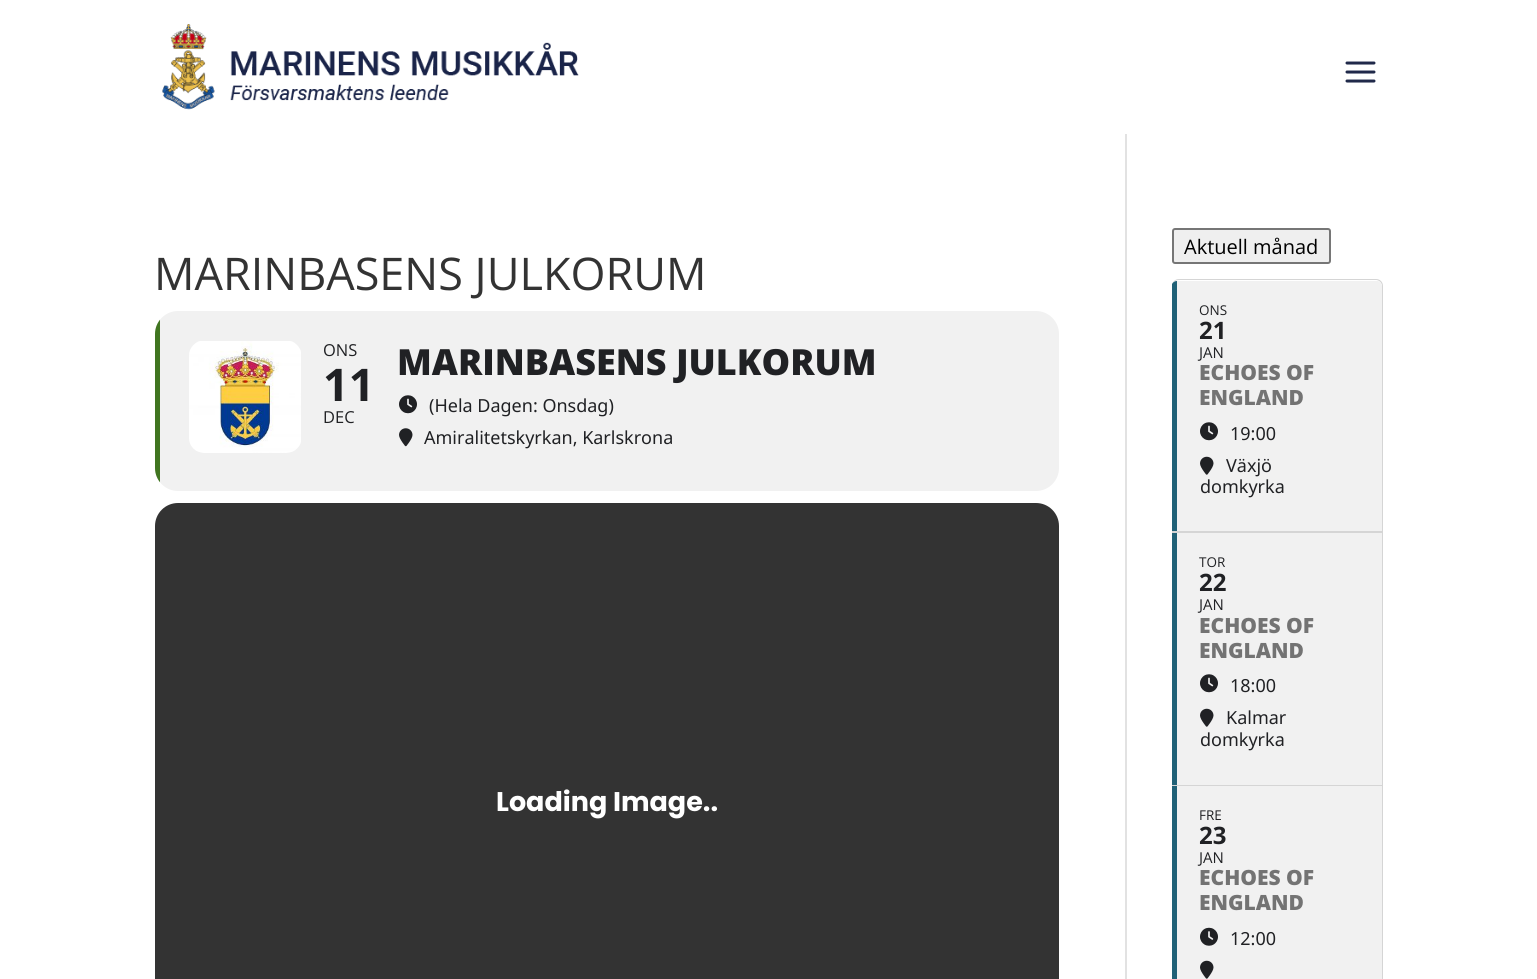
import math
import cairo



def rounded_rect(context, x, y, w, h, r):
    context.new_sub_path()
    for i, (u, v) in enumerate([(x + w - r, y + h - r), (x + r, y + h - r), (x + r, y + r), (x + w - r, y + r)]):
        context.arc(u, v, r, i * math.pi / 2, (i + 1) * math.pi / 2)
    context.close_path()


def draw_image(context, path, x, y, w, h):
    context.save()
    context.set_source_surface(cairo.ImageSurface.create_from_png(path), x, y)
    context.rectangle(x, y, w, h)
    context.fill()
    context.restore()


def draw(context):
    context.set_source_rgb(1, 1, 1)
    context.paint()
    draw_image(context, "images/1.png", 162, 24, 417, 86)
    draw_image(context, "images/2.png", 1345, 61, 31, 22)
    context.set_source_rgb(226 / 255, 226 / 255, 226 / 255)
    context.rectangle(1125, 134, 2, 845)
    context.fill()
    context.set_source_rgb(241 / 255, 241 / 255, 241 / 255)
    rounded_rect(context, 155, 311, 904, 180, 23)
    context.fill()
    context.save()
    rounded_rect(context, 155, 311, 904, 180, 23)
    context.clip()
    context.set_source_rgb(64 / 255, 117 / 255, 32 / 255)
    context.rectangle(155, 311, 5, 180)
    context.fill()
    context.restore()
    draw_image(context, "images/3.png", 189, 341, 112, 112)
    draw_image(context, "images/4.png", 399, 395, 18, 19)
    draw_image(context, "images/5.png", 399, 428, 14, 19)
    context.set_source_rgb(51 / 255, 51 / 255, 51 / 255)
    rounded_rect(context, 155, 503, 904, 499, 23)
    context.fill()
    context.set_source_rgb(239 / 255, 239 / 255, 239 / 255)
    rounded_rect(context, 1173, 229, 157, 34, 2)
    context.fill_preserve()
    context.set_source_rgb(118 / 255, 118 / 255, 118 / 255)
    context.stroke()
    context.set_source_rgb(213 / 255, 213 / 255, 213 / 255)
    context.set_fill_rule(cairo.FillRule.EVEN_ODD)
    context.new_path()
    context.move_to(1179, 279)
    context.line_to(1376, 279)
    context.curve_to(1380, 279, 1383, 282, 1383, 286)
    context.line_to(1383, 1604)
    context.curve_to(1383, 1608, 1380, 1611, 1376, 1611)
    context.line_to(1179, 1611)
    context.curve_to(1175, 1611, 1172, 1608, 1172, 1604)
    context.line_to(1172, 286)
    context.curve_to(1172, 282, 1175, 279, 1179, 279)
    context.close_path()
    context.move_to(1179, 280)
    context.line_to(1376, 280)
    context.curve_to(1379, 280, 1382, 283, 1382, 286)
    context.line_to(1382, 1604)
    context.curve_to(1382, 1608, 1379, 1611, 1376, 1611)
    context.line_to(1179, 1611)
    context.curve_to(1175, 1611, 1172, 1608, 1172, 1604)
    context.line_to(1172, 286)
    context.curve_to(1172, 283, 1175, 280, 1179, 280)
    context.close_path()
    context.fill()
    context.rectangle(1172, 531, 210, 2)
    context.fill()
    context.set_source_rgb(241 / 255, 241 / 255, 241 / 255)
    context.set_fill_rule(cairo.FillRule.WINDING)
    context.new_path()
    context.move_to(1172, 284)
    context.curve_to(1173, 283, 1174, 282, 1176, 281)
    context.line_to(1378, 281)
    context.curve_to(1380, 282, 1382, 284, 1382, 286)
    context.line_to(1382, 531)
    context.line_to(1172, 531)
    context.close_path()
    context.fill()
    context.set_source_rgb(32 / 255, 97 / 255, 119 / 255)
    context.new_path()
    context.move_to(1172, 284)
    context.curve_to(1173, 282, 1175, 281, 1177, 281)
    context.line_to(1177, 531)
    context.line_to(1172, 531)
    context.close_path()
    context.fill()
    draw_image(context, "images/4.png", 1200, 422, 18, 19)
    draw_image(context, "images/6.png", 1200, 456, 14, 19)
    context.set_source_rgb(213 / 255, 213 / 255, 213 / 255)
    context.rectangle(1172, 785, 210, 1)
    context.fill()
    context.set_source_rgb(241 / 255, 241 / 255, 241 / 255)
    context.rectangle(1177, 533, 205, 252)
    context.fill()
    context.set_source_rgb(32 / 255, 97 / 255, 119 / 255)
    context.rectangle(1172, 533, 5, 252)
    context.fill()
    draw_image(context, "images/4.png", 1200, 674, 18, 19)
    draw_image(context, "images/6.png", 1200, 708, 14, 19)
    context.set_source_rgb(241 / 255, 241 / 255, 241 / 255)
    context.rectangle(1177, 786, 205, 193)
    context.fill()
    context.set_source_rgb(32 / 255, 97 / 255, 119 / 255)
    context.rectangle(1172, 786, 5, 193)
    context.fill()
    draw_image(context, "images/7.png", 1200, 927, 18, 19)
    draw_image(context, "images/6.png", 1200, 960, 14, 19)
    context.select_font_face("Open Sans")
    context.set_font_size(45)
    context.set_source_rgb(51 / 255, 51 / 255, 51 / 255)
    context.move_to(154, 290)
    context.show_text("MARINBASENS JULKORUM")
    context.set_font_size(16.5)
    context.set_source_rgb(32 / 255, 33 / 255, 36 / 255)
    context.move_to(323, 356)
    context.show_text("ONS")
    context.select_font_face("Open Sans", cairo.FontSlant.NORMAL, cairo.FontWeight.BOLD)
    context.set_font_size(45)
    context.move_to(323, 401)
    context.show_text("11")
    context.select_font_face("Open Sans")
    context.set_font_size(16.5)
    context.move_to(323, 423)
    context.show_text("DEC")
    context.select_font_face("Open Sans ExtraBold")
    context.set_font_size(36)
    context.move_to(397, 375)
    context.show_text("MARINBASENS JULKORUM")
    context.select_font_face("Noto Sans")
    context.set_font_size(18)
    context.move_to(429, 412)
    context.show_text("(Hela Dagen: Onsdag)")
    context.move_to(424, 444)
    context.show_text("Amiralitetskyrkan, Karlskrona")
    context.select_font_face("Poppins", cairo.FontSlant.NORMAL, cairo.FontWeight.BOLD)
    context.set_font_size(27)
    context.set_source_rgb(1, 1, 1)
    context.move_to(496, 811)
    context.show_text("Loading Image..")
    context.select_font_face("Open Sans")
    context.set_font_size(20)
    context.set_source_rgb(0, 0, 0)
    context.move_to(1184, 254)
    context.show_text("Aktuell månad")
    context.set_font_size(13.5)
    context.set_source_rgb(32 / 255, 33 / 255, 36 / 255)
    context.move_to(1199, 315)
    context.show_text("ONS")
    context.select_font_face("Open Sans", cairo.FontSlant.NORMAL, cairo.FontWeight.BOLD)
    context.set_font_size(24)
    context.move_to(1199, 339)
    context.show_text("21")
    context.select_font_face("Open Sans")
    context.set_font_size(15)
    context.move_to(1199, 358)
    context.show_text("JAN")
    context.select_font_face("Open Sans ExtraBold")
    context.set_font_size(21)
    context.set_source_rgb(115 / 255, 115 / 255, 115 / 255)
    context.move_to(1199, 380)
    context.show_text("ECHOES OF")
    context.move_to(1199, 405)
    context.show_text("ENGLAND")
    context.select_font_face("Noto Sans")
    context.set_font_size(18)
    context.set_source_rgb(32 / 255, 33 / 255, 36 / 255)
    context.move_to(1230, 440)
    context.show_text("19:00")
    context.move_to(1226, 472)
    context.show_text("Växjö")
    context.move_to(1200, 493)
    context.show_text("domkyrka")
    context.select_font_face("Open Sans")
    context.set_font_size(13.5)
    context.move_to(1199, 567)
    context.show_text("TOR")
    context.select_font_face("Open Sans", cairo.FontSlant.NORMAL, cairo.FontWeight.BOLD)
    context.set_font_size(24)
    context.move_to(1199, 591)
    context.show_text("22")
    context.select_font_face("Open Sans")
    context.set_font_size(15)
    context.move_to(1199, 610)
    context.show_text("JAN")
    context.select_font_face("Open Sans ExtraBold")
    context.set_font_size(21)
    context.set_source_rgb(115 / 255, 115 / 255, 115 / 255)
    context.move_to(1199, 633)
    context.show_text("ECHOES OF")
    context.move_to(1199, 658)
    context.show_text("ENGLAND")
    context.select_font_face("Noto Sans")
    context.set_font_size(18)
    context.set_source_rgb(32 / 255, 33 / 255, 36 / 255)
    context.move_to(1230, 692)
    context.show_text("18:00")
    context.move_to(1226, 724)
    context.show_text("Kalmar")
    context.move_to(1200, 746)
    context.show_text("domkyrka")
    context.select_font_face("Open Sans")
    context.set_font_size(13.5)
    context.move_to(1199, 820)
    context.show_text("FRE")
    context.select_font_face("Open Sans", cairo.FontSlant.NORMAL, cairo.FontWeight.BOLD)
    context.set_font_size(24)
    context.move_to(1199, 844)
    context.show_text("23")
    context.select_font_face("Open Sans")
    context.set_font_size(15)
    context.move_to(1199, 863)
    context.show_text("JAN")
    context.select_font_face("Open Sans ExtraBold")
    context.set_font_size(21)
    context.set_source_rgb(115 / 255, 115 / 255, 115 / 255)
    context.move_to(1199, 885)
    context.show_text("ECHOES OF")
    context.move_to(1199, 910)
    context.show_text("ENGLAND")
    context.select_font_face("Noto Sans")
    context.set_font_size(18)
    context.set_source_rgb(32 / 255, 33 / 255, 36 / 255)
    context.move_to(1230, 945)
    context.show_text("12:00")


surface = cairo.ImageSurface(cairo.Format.RGB24, 1537, 979)
context = cairo.Context(surface)
options = cairo.FontOptions()
options.set_hint_metrics(cairo.HintMetrics.OFF)
options.set_hint_style(cairo.HintStyle.NONE)
context.set_font_options(options)
context.set_miter_limit(4)
draw(context)
surface.write_to_png("out.png")
